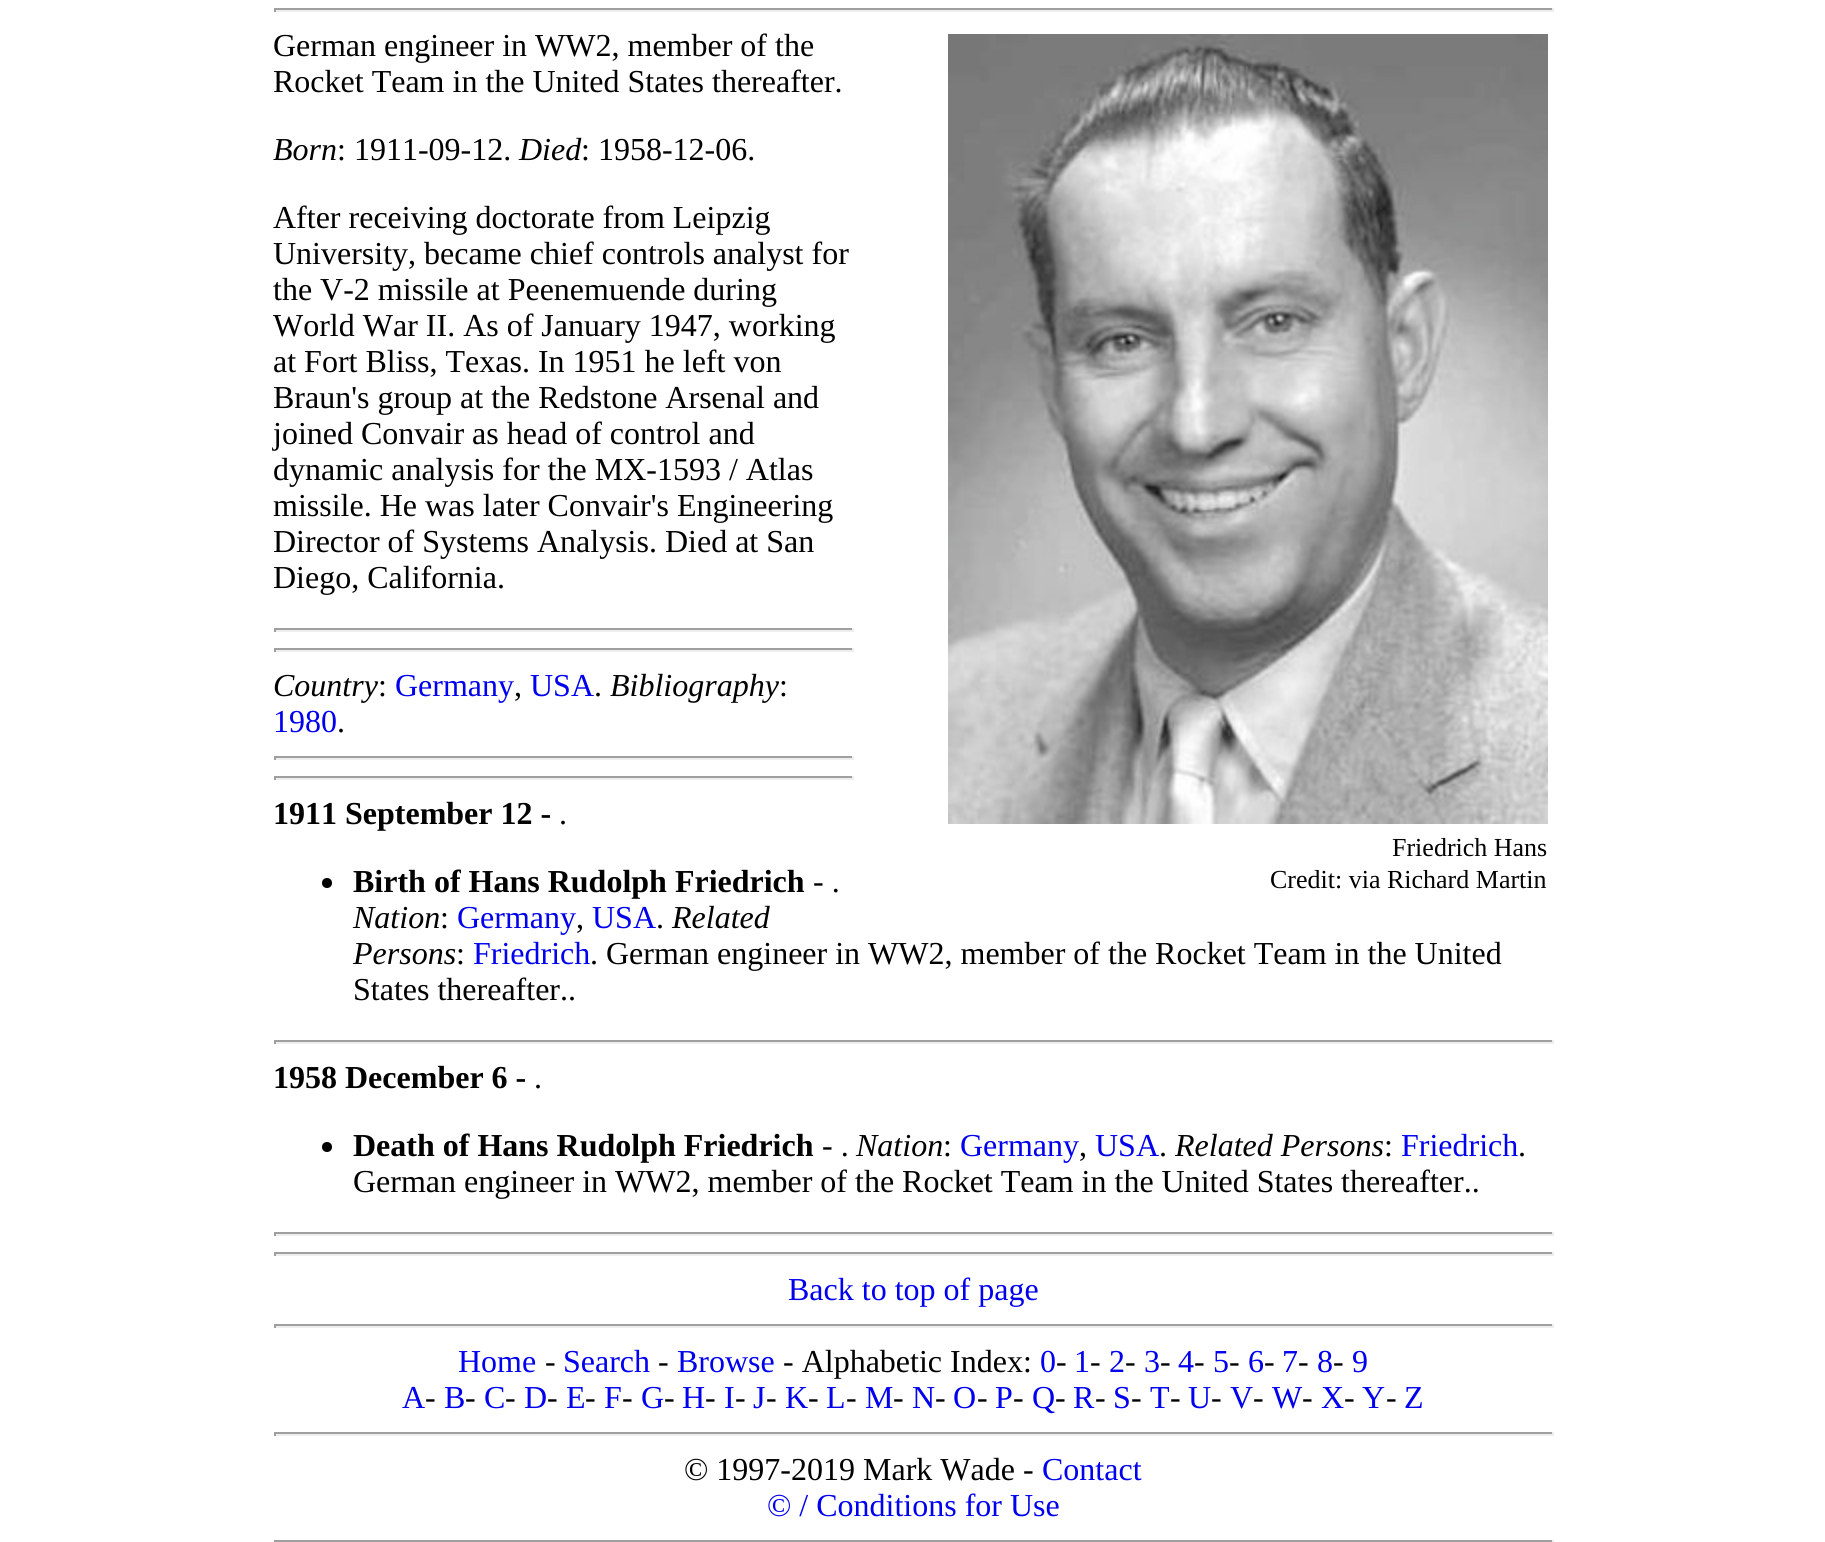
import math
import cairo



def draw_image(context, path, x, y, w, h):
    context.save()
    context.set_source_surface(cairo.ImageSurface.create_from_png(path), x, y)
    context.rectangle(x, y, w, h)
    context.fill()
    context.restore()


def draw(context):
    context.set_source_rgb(1, 1, 1)
    context.paint()
    context.set_source_rgb(159 / 255, 159 / 255, 159 / 255)
    context.rectangle(274, 8, 1280, 2)
    context.fill()
    context.set_source_rgb(238 / 255, 238 / 255, 238 / 255)
    context.rectangle(1552, 8, 2, 4)
    context.fill()
    context.rectangle(274, 10, 1280, 2)
    context.fill()
    context.set_source_rgb(159 / 255, 159 / 255, 159 / 255)
    context.rectangle(274, 8, 2, 4)
    context.fill()
    context.rectangle(274, 628, 580, 2)
    context.fill()
    context.set_source_rgb(238 / 255, 238 / 255, 238 / 255)
    context.rectangle(852, 628, 2, 4)
    context.fill()
    context.rectangle(274, 630, 580, 2)
    context.fill()
    context.set_source_rgb(159 / 255, 159 / 255, 159 / 255)
    context.rectangle(274, 628, 2, 4)
    context.fill()
    context.rectangle(274, 648, 580, 2)
    context.fill()
    context.set_source_rgb(238 / 255, 238 / 255, 238 / 255)
    context.rectangle(852, 648, 2, 4)
    context.fill()
    context.rectangle(274, 650, 580, 2)
    context.fill()
    context.set_source_rgb(159 / 255, 159 / 255, 159 / 255)
    context.rectangle(274, 648, 2, 4)
    context.fill()
    context.rectangle(274, 756, 580, 2)
    context.fill()
    context.set_source_rgb(238 / 255, 238 / 255, 238 / 255)
    context.rectangle(852, 756, 2, 4)
    context.fill()
    context.rectangle(274, 758, 580, 2)
    context.fill()
    context.set_source_rgb(159 / 255, 159 / 255, 159 / 255)
    context.rectangle(274, 756, 2, 4)
    context.fill()
    context.rectangle(274, 776, 580, 2)
    context.fill()
    context.set_source_rgb(238 / 255, 238 / 255, 238 / 255)
    context.rectangle(852, 776, 2, 4)
    context.fill()
    context.rectangle(274, 778, 580, 2)
    context.fill()
    context.set_source_rgb(159 / 255, 159 / 255, 159 / 255)
    context.rectangle(274, 776, 2, 4)
    context.fill()
    draw_image(context, "images/1.png", 948, 34, 600, 790)
    context.set_source_rgb(0, 0, 0)
    context.arc(327, 883, 5, 0, 2 * math.pi)
    context.fill()
    context.set_source_rgb(159 / 255, 159 / 255, 159 / 255)
    context.rectangle(274, 1040, 1280, 2)
    context.fill()
    context.set_source_rgb(238 / 255, 238 / 255, 238 / 255)
    context.rectangle(1552, 1040, 2, 4)
    context.fill()
    context.rectangle(274, 1042, 1280, 2)
    context.fill()
    context.set_source_rgb(159 / 255, 159 / 255, 159 / 255)
    context.rectangle(274, 1040, 2, 4)
    context.fill()
    context.set_source_rgb(0, 0, 0)
    context.arc(327, 1147, 5, 0, 2 * math.pi)
    context.fill()
    context.set_source_rgb(159 / 255, 159 / 255, 159 / 255)
    context.rectangle(274, 1232, 1280, 2)
    context.fill()
    context.set_source_rgb(238 / 255, 238 / 255, 238 / 255)
    context.rectangle(1552, 1232, 2, 4)
    context.fill()
    context.rectangle(274, 1234, 1280, 2)
    context.fill()
    context.set_source_rgb(159 / 255, 159 / 255, 159 / 255)
    context.rectangle(274, 1232, 2, 4)
    context.fill()
    context.rectangle(274, 1252, 1280, 2)
    context.fill()
    context.set_source_rgb(238 / 255, 238 / 255, 238 / 255)
    context.rectangle(1552, 1252, 2, 4)
    context.fill()
    context.rectangle(274, 1254, 1280, 2)
    context.fill()
    context.set_source_rgb(159 / 255, 159 / 255, 159 / 255)
    context.rectangle(274, 1252, 2, 4)
    context.fill()
    context.rectangle(274, 1324, 1280, 2)
    context.fill()
    context.set_source_rgb(238 / 255, 238 / 255, 238 / 255)
    context.rectangle(1552, 1324, 2, 4)
    context.fill()
    context.rectangle(274, 1326, 1280, 2)
    context.fill()
    context.set_source_rgb(159 / 255, 159 / 255, 159 / 255)
    context.rectangle(274, 1324, 2, 4)
    context.fill()
    context.rectangle(274, 1432, 1280, 2)
    context.fill()
    context.set_source_rgb(238 / 255, 238 / 255, 238 / 255)
    context.rectangle(1552, 1432, 2, 4)
    context.fill()
    context.rectangle(274, 1434, 1280, 2)
    context.fill()
    context.set_source_rgb(159 / 255, 159 / 255, 159 / 255)
    context.rectangle(274, 1432, 2, 4)
    context.fill()
    context.rectangle(274, 1540, 1280, 2)
    context.fill()
    context.set_source_rgb(238 / 255, 238 / 255, 238 / 255)
    context.rectangle(1552, 1540, 2, 2)
    context.fill()
    context.select_font_face("Liberation Serif")
    context.set_font_size(32)
    context.set_source_rgb(0, 0, 0)
    context.move_to(273, 56)
    context.show_text("German engineer in WW2, member of the")
    context.move_to(273, 92)
    context.show_text("Rocket Team in the United States thereafter.")
    context.select_font_face("Liberation Serif", cairo.FontSlant.ITALIC)
    context.move_to(273, 160)
    context.show_text("Born")
    context.select_font_face("Liberation Serif")
    context.move_to(337, 160)
    context.show_text(": 1911-09-12.")
    context.select_font_face("Liberation Serif", cairo.FontSlant.ITALIC)
    context.move_to(519, 160)
    context.show_text("Died")
    context.select_font_face("Liberation Serif")
    context.move_to(581, 160)
    context.show_text(": 1958-12-06.")
    context.move_to(273, 228)
    context.show_text("After receiving doctorate from Leipzig")
    context.move_to(273, 264)
    context.show_text("University, became chief controls analyst for")
    context.move_to(273, 300)
    context.show_text("the V-2 missile at Peenemuende during")
    context.move_to(273, 336)
    context.show_text("World War II. As of January 1947, working")
    context.move_to(273, 372)
    context.show_text("at Fort Bliss, Texas. In 1951 he left von")
    context.move_to(273, 408)
    context.show_text("Braun's group at the Redstone Arsenal and")
    context.move_to(273, 444)
    context.show_text("joined Convair as head of control and")
    context.move_to(273, 480)
    context.show_text("dynamic analysis for the MX-1593 / Atlas")
    context.move_to(273, 516)
    context.show_text("missile. He was later Convair's Engineering")
    context.move_to(273, 552)
    context.show_text("Director of Systems Analysis. Died at San")
    context.move_to(273, 588)
    context.show_text("Diego, California.")
    context.select_font_face("Liberation Serif", cairo.FontSlant.ITALIC)
    context.move_to(273, 696)
    context.show_text("Country")
    context.select_font_face("Liberation Serif")
    context.move_to(378, 696)
    context.show_text(":")
    context.set_source_rgb(0, 0, 238 / 255)
    context.move_to(395, 696)
    context.show_text("Germany")
    context.set_source_rgb(0, 0, 0)
    context.move_to(514, 696)
    context.show_text(",")
    context.set_source_rgb(0, 0, 238 / 255)
    context.move_to(530, 696)
    context.show_text("USA")
    context.set_source_rgb(0, 0, 0)
    context.move_to(594, 696)
    context.show_text(".")
    context.select_font_face("Liberation Serif", cairo.FontSlant.ITALIC)
    context.move_to(610, 696)
    context.show_text("Bibliography")
    context.select_font_face("Liberation Serif")
    context.move_to(779, 696)
    context.show_text(":")
    context.set_source_rgb(0, 0, 238 / 255)
    context.move_to(273, 732)
    context.show_text("1980")
    context.set_source_rgb(0, 0, 0)
    context.move_to(337, 732)
    context.show_text(".")
    context.select_font_face("Liberation Serif", cairo.FontSlant.NORMAL, cairo.FontWeight.BOLD)
    context.move_to(273, 824)
    context.show_text("1911 September 12 -")
    context.select_font_face("Liberation Serif")
    context.move_to(559, 824)
    context.show_text(".")
    context.set_font_size(26)
    context.move_to(1392, 856)
    context.show_text("Friedrich Hans")
    context.move_to(1270, 888)
    context.show_text("Credit: via Richard Martin")
    context.select_font_face("Liberation Serif", cairo.FontSlant.NORMAL, cairo.FontWeight.BOLD)
    context.set_font_size(32)
    context.move_to(353, 892)
    context.show_text("Birth of Hans Rudolph Friedrich")
    context.select_font_face("Liberation Serif")
    context.move_to(813, 892)
    context.show_text("- .")
    context.select_font_face("Liberation Serif", cairo.FontSlant.ITALIC)
    context.move_to(353, 928)
    context.show_text("Nation")
    context.select_font_face("Liberation Serif")
    context.move_to(440, 928)
    context.show_text(":")
    context.set_source_rgb(0, 0, 238 / 255)
    context.move_to(457, 928)
    context.show_text("Germany")
    context.set_source_rgb(0, 0, 0)
    context.move_to(576, 928)
    context.show_text(",")
    context.set_source_rgb(0, 0, 238 / 255)
    context.move_to(592, 928)
    context.show_text("USA")
    context.set_source_rgb(0, 0, 0)
    context.move_to(656, 928)
    context.show_text(".")
    context.select_font_face("Liberation Serif", cairo.FontSlant.ITALIC)
    context.move_to(672, 928)
    context.show_text("Related")
    context.move_to(353, 964)
    context.show_text("Persons")
    context.select_font_face("Liberation Serif")
    context.move_to(456, 964)
    context.show_text(":")
    context.set_source_rgb(0, 0, 238 / 255)
    context.move_to(473, 964)
    context.show_text("Friedrich")
    context.set_source_rgb(0, 0, 0)
    context.move_to(590, 964)
    context.show_text(". German engineer in WW2, member of the Rocket Team in the United")
    context.move_to(353, 1000)
    context.show_text("States thereafter..")
    context.select_font_face("Liberation Serif", cairo.FontSlant.NORMAL, cairo.FontWeight.BOLD)
    context.move_to(273, 1088)
    context.show_text("1958 December 6 -")
    context.select_font_face("Liberation Serif")
    context.move_to(534, 1088)
    context.show_text(".")
    context.select_font_face("Liberation Serif", cairo.FontSlant.NORMAL, cairo.FontWeight.BOLD)
    context.move_to(353, 1156)
    context.show_text("Death of Hans Rudolph Friedrich")
    context.select_font_face("Liberation Serif")
    context.move_to(822, 1156)
    context.show_text("- .")
    context.select_font_face("Liberation Serif", cairo.FontSlant.ITALIC)
    context.move_to(856, 1156)
    context.show_text("Nation")
    context.select_font_face("Liberation Serif")
    context.move_to(943, 1156)
    context.show_text(":")
    context.set_source_rgb(0, 0, 238 / 255)
    context.move_to(960, 1156)
    context.show_text("Germany")
    context.set_source_rgb(0, 0, 0)
    context.move_to(1079, 1156)
    context.show_text(",")
    context.set_source_rgb(0, 0, 238 / 255)
    context.move_to(1095, 1156)
    context.show_text("USA")
    context.set_source_rgb(0, 0, 0)
    context.move_to(1159, 1156)
    context.show_text(".")
    context.select_font_face("Liberation Serif", cairo.FontSlant.ITALIC)
    context.move_to(1175, 1156)
    context.show_text("Related Persons")
    context.select_font_face("Liberation Serif")
    context.move_to(1384, 1156)
    context.show_text(":")
    context.set_source_rgb(0, 0, 238 / 255)
    context.move_to(1401, 1156)
    context.show_text("Friedrich")
    context.set_source_rgb(0, 0, 0)
    context.move_to(1518, 1156)
    context.show_text(".")
    context.move_to(353, 1192)
    context.show_text("German engineer in WW2, member of the Rocket Team in the United States thereafter..")
    context.set_source_rgb(0, 0, 238 / 255)
    context.move_to(788, 1300)
    context.show_text("Back to top of page")
    context.move_to(458, 1372)
    context.show_text("Home")
    context.set_source_rgb(0, 0, 0)
    context.move_to(545, 1372)
    context.show_text("-")
    context.set_source_rgb(0, 0, 238 / 255)
    context.move_to(563, 1372)
    context.show_text("Search")
    context.set_source_rgb(0, 0, 0)
    context.move_to(658, 1372)
    context.show_text("-")
    context.set_source_rgb(0, 0, 238 / 255)
    context.move_to(677, 1372)
    context.show_text("Browse")
    context.set_source_rgb(0, 0, 0)
    context.move_to(783, 1372)
    context.show_text("- Alphabetic Index:")
    context.set_source_rgb(0, 0, 238 / 255)
    context.move_to(1040, 1372)
    context.show_text("0")
    context.set_source_rgb(0, 0, 0)
    context.move_to(1056, 1372)
    context.show_text("-")
    context.set_source_rgb(0, 0, 238 / 255)
    context.move_to(1074, 1372)
    context.show_text("1")
    context.set_source_rgb(0, 0, 0)
    context.move_to(1090, 1372)
    context.show_text("-")
    context.set_source_rgb(0, 0, 238 / 255)
    context.move_to(1109, 1372)
    context.show_text("2")
    context.set_source_rgb(0, 0, 0)
    context.move_to(1125, 1372)
    context.show_text("-")
    context.set_source_rgb(0, 0, 238 / 255)
    context.move_to(1144, 1372)
    context.show_text("3")
    context.set_source_rgb(0, 0, 0)
    context.move_to(1160, 1372)
    context.show_text("-")
    context.set_source_rgb(0, 0, 238 / 255)
    context.move_to(1178, 1372)
    context.show_text("4")
    context.set_source_rgb(0, 0, 0)
    context.move_to(1194, 1372)
    context.show_text("-")
    context.set_source_rgb(0, 0, 238 / 255)
    context.move_to(1213, 1372)
    context.show_text("5")
    context.set_source_rgb(0, 0, 0)
    context.move_to(1229, 1372)
    context.show_text("-")
    context.set_source_rgb(0, 0, 238 / 255)
    context.move_to(1248, 1372)
    context.show_text("6")
    context.set_source_rgb(0, 0, 0)
    context.move_to(1264, 1372)
    context.show_text("-")
    context.set_source_rgb(0, 0, 238 / 255)
    context.move_to(1282, 1372)
    context.show_text("7")
    context.set_source_rgb(0, 0, 0)
    context.move_to(1298, 1372)
    context.show_text("-")
    context.set_source_rgb(0, 0, 238 / 255)
    context.move_to(1317, 1372)
    context.show_text("8")
    context.set_source_rgb(0, 0, 0)
    context.move_to(1333, 1372)
    context.show_text("-")
    context.set_source_rgb(0, 0, 238 / 255)
    context.move_to(1352, 1372)
    context.show_text("9")
    context.move_to(402, 1408)
    context.show_text("A")
    context.set_source_rgb(0, 0, 0)
    context.move_to(425, 1408)
    context.show_text("-")
    context.set_source_rgb(0, 0, 238 / 255)
    context.move_to(444, 1408)
    context.show_text("B")
    context.set_source_rgb(0, 0, 0)
    context.move_to(465, 1408)
    context.show_text("-")
    context.set_source_rgb(0, 0, 238 / 255)
    context.move_to(484, 1408)
    context.show_text("C")
    context.set_source_rgb(0, 0, 0)
    context.move_to(505, 1408)
    context.show_text("-")
    context.set_source_rgb(0, 0, 238 / 255)
    context.move_to(524, 1408)
    context.show_text("D")
    context.set_source_rgb(0, 0, 0)
    context.move_to(547, 1408)
    context.show_text("-")
    context.set_source_rgb(0, 0, 238 / 255)
    context.move_to(566, 1408)
    context.show_text("E")
    context.set_source_rgb(0, 0, 0)
    context.move_to(585, 1408)
    context.show_text("-")
    context.set_source_rgb(0, 0, 238 / 255)
    context.move_to(604, 1408)
    context.show_text("F")
    context.set_source_rgb(0, 0, 0)
    context.move_to(622, 1408)
    context.show_text("-")
    context.set_source_rgb(0, 0, 238 / 255)
    context.move_to(641, 1408)
    context.show_text("G")
    context.set_source_rgb(0, 0, 0)
    context.move_to(664, 1408)
    context.show_text("-")
    context.set_source_rgb(0, 0, 238 / 255)
    context.move_to(682, 1408)
    context.show_text("H")
    context.set_source_rgb(0, 0, 0)
    context.move_to(705, 1408)
    context.show_text("-")
    context.set_source_rgb(0, 0, 238 / 255)
    context.move_to(724, 1408)
    context.show_text("I")
    context.set_source_rgb(0, 0, 0)
    context.move_to(735, 1408)
    context.show_text("-")
    context.set_source_rgb(0, 0, 238 / 255)
    context.move_to(753, 1408)
    context.show_text("J")
    context.set_source_rgb(0, 0, 0)
    context.move_to(766, 1408)
    context.show_text("-")
    context.set_source_rgb(0, 0, 238 / 255)
    context.move_to(785, 1408)
    context.show_text("K")
    context.set_source_rgb(0, 0, 0)
    context.move_to(808, 1408)
    context.show_text("-")
    context.set_source_rgb(0, 0, 238 / 255)
    context.move_to(826, 1408)
    context.show_text("L")
    context.set_source_rgb(0, 0, 0)
    context.move_to(846, 1408)
    context.show_text("-")
    context.set_source_rgb(0, 0, 238 / 255)
    context.move_to(865, 1408)
    context.show_text("M")
    context.set_source_rgb(0, 0, 0)
    context.move_to(893, 1408)
    context.show_text("-")
    context.set_source_rgb(0, 0, 238 / 255)
    context.move_to(912, 1408)
    context.show_text("N")
    context.set_source_rgb(0, 0, 0)
    context.move_to(935, 1408)
    context.show_text("-")
    context.set_source_rgb(0, 0, 238 / 255)
    context.move_to(953, 1408)
    context.show_text("O")
    context.set_source_rgb(0, 0, 0)
    context.move_to(977, 1408)
    context.show_text("-")
    context.set_source_rgb(0, 0, 238 / 255)
    context.move_to(995, 1408)
    context.show_text("P")
    context.set_source_rgb(0, 0, 0)
    context.move_to(1013, 1408)
    context.show_text("-")
    context.set_source_rgb(0, 0, 238 / 255)
    context.move_to(1032, 1408)
    context.show_text("Q")
    context.set_source_rgb(0, 0, 0)
    context.move_to(1055, 1408)
    context.show_text("-")
    context.set_source_rgb(0, 0, 238 / 255)
    context.move_to(1073, 1408)
    context.show_text("R")
    context.set_source_rgb(0, 0, 0)
    context.move_to(1095, 1408)
    context.show_text("-")
    context.set_source_rgb(0, 0, 238 / 255)
    context.move_to(1113, 1408)
    context.show_text("S")
    context.set_source_rgb(0, 0, 0)
    context.move_to(1131, 1408)
    context.show_text("-")
    context.set_source_rgb(0, 0, 238 / 255)
    context.move_to(1150, 1408)
    context.show_text("T")
    context.set_source_rgb(0, 0, 0)
    context.move_to(1170, 1408)
    context.show_text("-")
    context.set_source_rgb(0, 0, 238 / 255)
    context.move_to(1188, 1408)
    context.show_text("U")
    context.set_source_rgb(0, 0, 0)
    context.move_to(1211, 1408)
    context.show_text("-")
    context.set_source_rgb(0, 0, 238 / 255)
    context.move_to(1230, 1408)
    context.show_text("V")
    context.set_source_rgb(0, 0, 0)
    context.move_to(1253, 1408)
    context.show_text("-")
    context.set_source_rgb(0, 0, 238 / 255)
    context.move_to(1272, 1408)
    context.show_text("W")
    context.set_source_rgb(0, 0, 0)
    context.move_to(1302, 1408)
    context.show_text("-")
    context.set_source_rgb(0, 0, 238 / 255)
    context.move_to(1321, 1408)
    context.show_text("X")
    context.set_source_rgb(0, 0, 0)
    context.move_to(1344, 1408)
    context.show_text("-")
    context.set_source_rgb(0, 0, 238 / 255)
    context.move_to(1362, 1408)
    context.show_text("Y")
    context.set_source_rgb(0, 0, 0)
    context.move_to(1386, 1408)
    context.show_text("-")
    context.set_source_rgb(0, 0, 238 / 255)
    context.move_to(1404, 1408)
    context.show_text("Z")
    context.set_source_rgb(0, 0, 0)
    context.move_to(684, 1480)
    context.show_text("© 1997-2019 Mark Wade -")
    context.set_source_rgb(0, 0, 238 / 255)
    context.move_to(1042, 1480)
    context.show_text("Contact")
    context.move_to(767, 1516)
    context.show_text("© / Conditions for Use")


surface = cairo.ImageSurface(cairo.Format.RGB24, 1825, 1542)
context = cairo.Context(surface)
options = cairo.FontOptions()
options.set_hint_metrics(cairo.HintMetrics.OFF)
options.set_hint_style(cairo.HintStyle.NONE)
context.set_font_options(options)
context.set_miter_limit(4)
draw(context)
surface.write_to_png("out.png")
